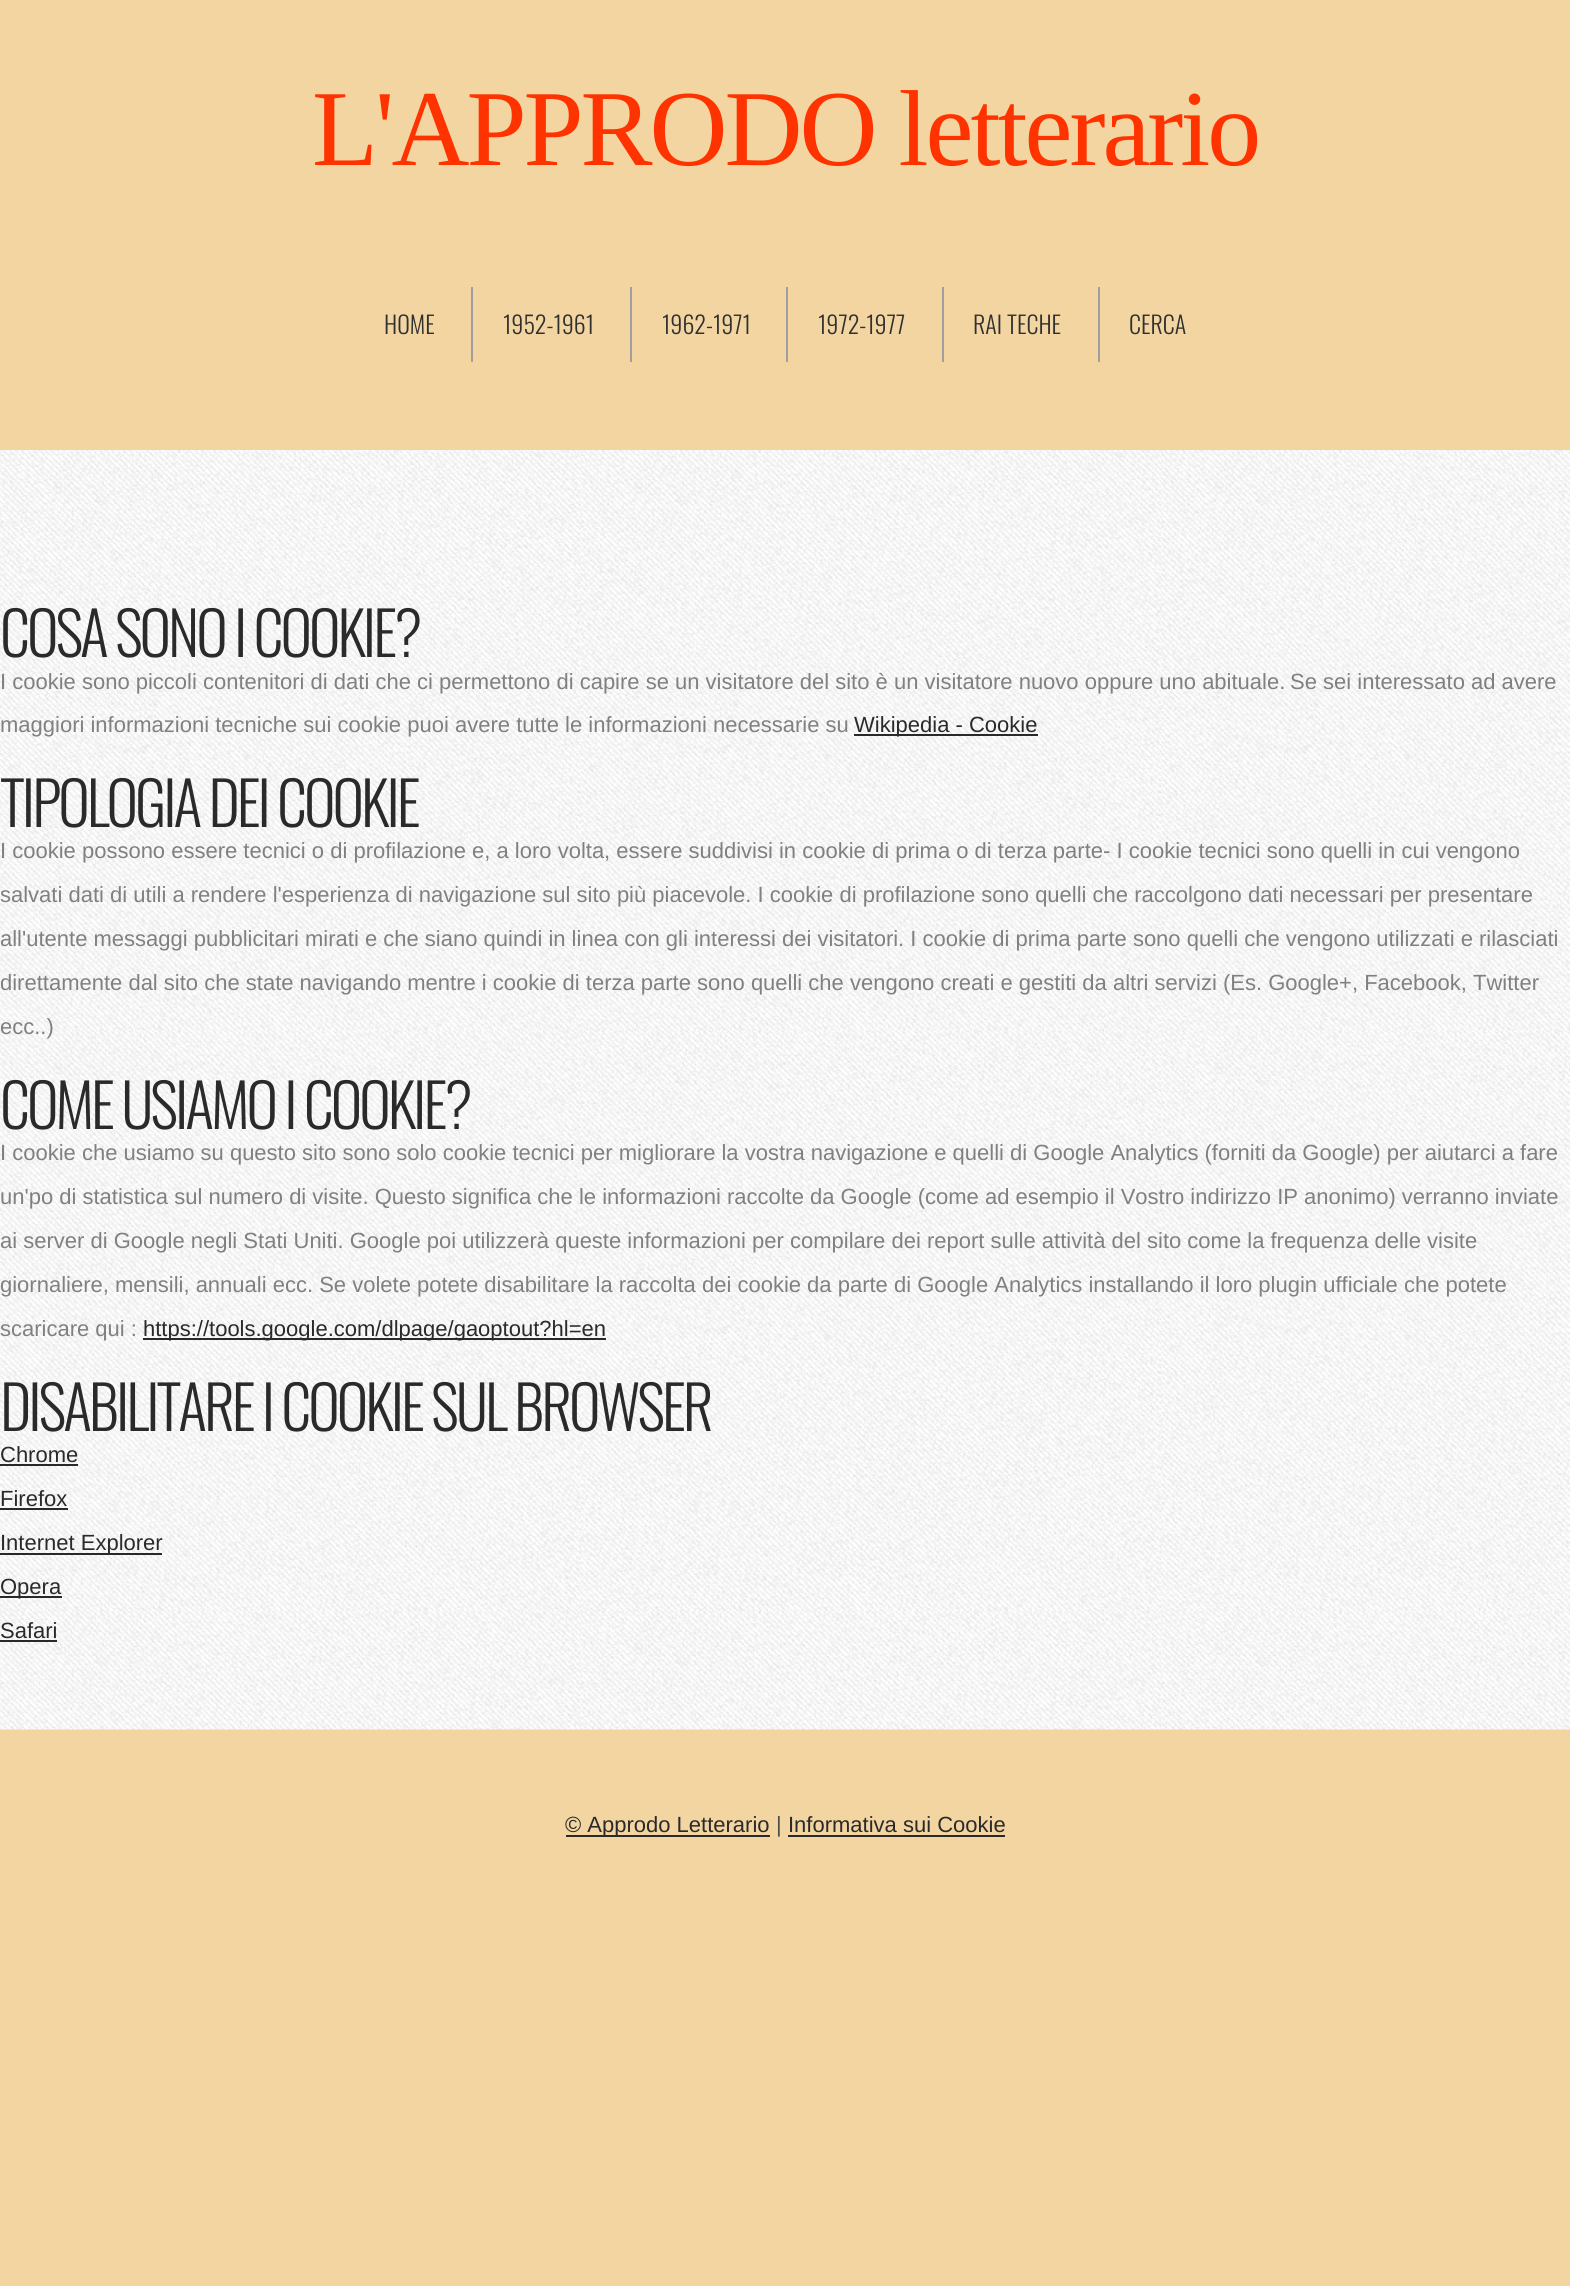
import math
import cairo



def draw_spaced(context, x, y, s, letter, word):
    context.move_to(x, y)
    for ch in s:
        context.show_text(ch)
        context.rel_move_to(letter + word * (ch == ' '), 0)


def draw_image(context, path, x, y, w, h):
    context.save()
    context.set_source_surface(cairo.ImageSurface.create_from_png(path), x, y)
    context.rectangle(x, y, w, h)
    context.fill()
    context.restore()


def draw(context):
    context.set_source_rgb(243 / 255, 213 / 255, 162 / 255)
    context.paint()
    context.set_source_rgb(159 / 255, 159 / 255, 159 / 255)
    context.rectangle(471, 287, 2, 75)
    context.fill()
    context.rectangle(630, 287, 2, 75)
    context.fill()
    context.rectangle(786, 287, 2, 75)
    context.fill()
    context.rectangle(942, 287, 2, 75)
    context.fill()
    context.rectangle(1098, 287, 2, 75)
    context.fill()
    draw_image(context, "images/1.png", 0, 450, 1570, 1280)
    context.set_source_rgb(41 / 255, 41 / 255, 41 / 255)
    context.rectangle(854, 734, 184, 2)
    context.fill()
    context.rectangle(143, 1338, 463, 2)
    context.fill()
    context.rectangle(0, 1464, 78, 2)
    context.fill()
    context.rectangle(0, 1508, 68, 2)
    context.fill()
    context.rectangle(0, 1553, 162, 2)
    context.fill()
    context.rectangle(0, 1596, 62, 2)
    context.fill()
    context.rectangle(0, 1640, 57, 2)
    context.fill()
    context.rectangle(566, 1835, 204, 2)
    context.fill()
    context.rectangle(788, 1835, 217, 2)
    context.fill()
    context.select_font_face("Liberation Serif")
    context.set_font_size(108)
    context.set_source_rgb(1, 51 / 255, 0)
    draw_spaced(context, 312, 165, "L'APPRODO letterario", -3, 0)
    context.select_font_face("Oswald Light")
    context.set_font_size(24)
    context.set_source_rgb(48 / 255, 48 / 255, 48 / 255)
    context.move_to(384, 334)
    context.show_text("HOME")
    context.move_to(503, 334)
    context.show_text("1952-1961")
    context.move_to(662, 334)
    context.show_text("1962-1971")
    context.move_to(818, 334)
    context.show_text("1972-1977")
    context.move_to(973, 334)
    context.show_text("RAI TECHE")
    context.move_to(1129, 334)
    context.show_text("CERCA")
    context.set_font_size(60)
    context.set_source_rgb(42 / 255, 42 / 255, 42 / 255)
    draw_spaced(context, 0, 657, "COSA SONO I COOKIE?", -3, 0)
    context.select_font_face("Liberation Sans")
    context.set_font_size(22)
    context.set_source_rgb(128 / 255, 128 / 255, 128 / 255)
    context.move_to(0, 689)
    context.show_text("I cookie sono piccoli contenitori di dati che ci permettono di capire se un visitatore del sito è un visitatore nuovo oppure uno abituale.")
    context.move_to(1290, 689)
    context.show_text("Se sei interessato ad avere")
    context.move_to(0, 732)
    context.show_text("maggiori informazioni tecniche sui cookie puoi")
    context.move_to(455, 732)
    context.show_text("avere tutte le informazioni necessarie su")
    context.set_source_rgb(42 / 255, 42 / 255, 42 / 255)
    context.move_to(854, 732)
    context.show_text("Wikipedia - Cookie")
    context.select_font_face("Oswald Light")
    context.set_font_size(60)
    draw_spaced(context, 0, 827, "TIPOLOGIA DEI COOKIE", -3, 0)
    context.select_font_face("Liberation Sans")
    context.set_font_size(22)
    context.set_source_rgb(128 / 255, 128 / 255, 128 / 255)
    context.move_to(0, 858)
    context.show_text("I cookie possono essere tecnici o di profilazione e, a loro volta, essere suddivisi in cookie di prima o di terza parte- I cookie tecnici sono quelli in cui vengono")
    context.move_to(0, 902)
    context.show_text("salvati dati di utili a rendere l'esperienza di navigazione sul sito più piacevole. I cookie di profilazione sono quelli che raccolgono dati necessari per presentare")
    context.move_to(0, 946)
    context.show_text("all'utente messaggi pubblicitari mirati e che siano quindi in linea con gli interessi dei visitatori. I cookie di prima parte sono quelli che vengono utilizzati e rilasciati")
    context.move_to(0, 990)
    context.show_text("direttamente dal sito che state navigando mentre i cookie di terza parte sono quelli che vengono creati e gestiti da altri servizi (Es. Google+, Facebook, Twitter")
    context.move_to(0, 1034)
    context.show_text("ecc..)")
    context.select_font_face("Oswald Light")
    context.set_font_size(60)
    context.set_source_rgb(42 / 255, 42 / 255, 42 / 255)
    draw_spaced(context, 0, 1129, "COME USIAMO I COOKIE?", -3, 0)
    context.select_font_face("Liberation Sans")
    context.set_font_size(22)
    context.set_source_rgb(128 / 255, 128 / 255, 128 / 255)
    context.move_to(0, 1160)
    context.show_text("I cookie che usiamo su questo sito sono solo cookie tecnici per migliorare la vostra navigazione e quelli di Google Analytics (forniti da Google) per aiutarci a fare")
    context.move_to(0, 1204)
    context.show_text("un'po di statistica sul numero di visite. Questo significa che le informazioni raccolte da Google (come ad esempio il Vostro indirizzo IP anonimo) verranno inviate")
    context.move_to(0, 1248)
    context.show_text("ai server di Google negli Stati Uniti. Google poi utilizzerà queste informazioni per compilare dei report sulle attività del sito come la frequenza delle visite")
    context.move_to(0, 1292)
    context.show_text("giornaliere, mensili, annuali ecc. Se volete potete disabilitare la raccolta dei cookie da parte di Google Analytics installando il loro plugin ufficiale che potete")
    context.move_to(0, 1336)
    context.show_text("scaricare qui :")
    context.set_source_rgb(42 / 255, 42 / 255, 42 / 255)
    context.move_to(143, 1336)
    context.show_text("https://tools.google.com/dlpage/gaoptout?hl=en")
    context.select_font_face("Oswald Light")
    context.set_font_size(60)
    draw_spaced(context, 0, 1431, "DISABILITARE I COOKIE SUL BROWSER", -3, 0)
    context.select_font_face("Liberation Sans")
    context.set_font_size(22)
    context.move_to(0, 1462)
    context.show_text("Chrome")
    context.move_to(0, 1506)
    context.show_text("Firefox")
    context.move_to(0, 1550)
    context.show_text("Internet Explorer")
    context.move_to(0, 1594)
    context.show_text("Opera")
    context.move_to(0, 1638)
    context.show_text("Safari")
    context.move_to(565, 1832)
    context.show_text("© Approdo Letterario")
    context.set_source_rgb(79 / 255, 79 / 255, 79 / 255)
    context.move_to(776, 1832)
    context.show_text("|")
    context.set_source_rgb(42 / 255, 42 / 255, 42 / 255)
    context.move_to(788, 1832)
    context.show_text("Informativa sui Cookie")


surface = cairo.ImageSurface(cairo.Format.RGB24, 1570, 2286)
context = cairo.Context(surface)
options = cairo.FontOptions()
options.set_hint_metrics(cairo.HintMetrics.OFF)
options.set_hint_style(cairo.HintStyle.NONE)
context.set_font_options(options)
context.set_miter_limit(4)
draw(context)
surface.write_to_png("out.png")
